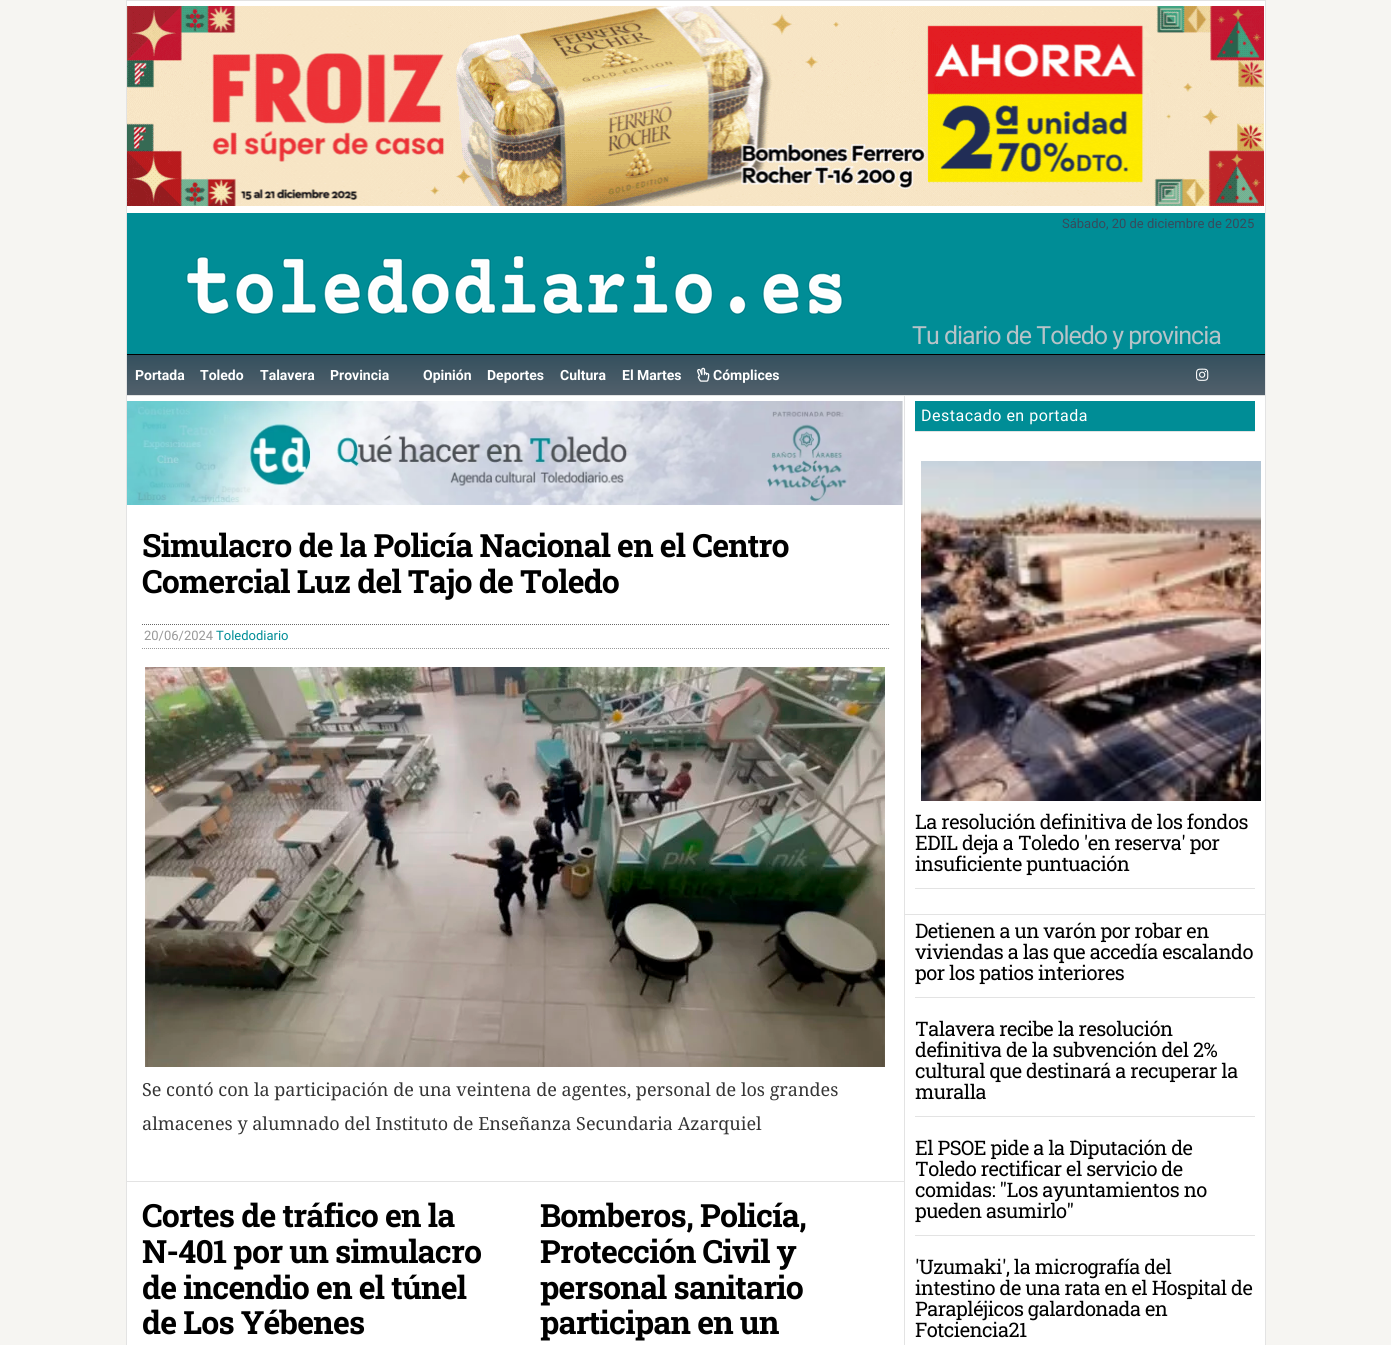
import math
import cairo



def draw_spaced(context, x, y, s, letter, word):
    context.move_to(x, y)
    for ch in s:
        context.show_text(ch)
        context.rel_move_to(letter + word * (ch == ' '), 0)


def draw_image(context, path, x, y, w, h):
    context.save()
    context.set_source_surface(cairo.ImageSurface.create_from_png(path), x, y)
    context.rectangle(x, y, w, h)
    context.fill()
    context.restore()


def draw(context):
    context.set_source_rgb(246 / 255, 245 / 255, 242 / 255)
    context.paint()
    context.set_source_rgb(1, 1, 1)
    context.rectangle(126.5, 0.5, 1139, 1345)
    context.fill_preserve()
    context.set_source_rgb(227 / 255, 227 / 255, 227 / 255)
    context.set_line_width(1)
    context.stroke()
    draw_image(context, "images/1.png", 127, 6, 1137, 200)
    context.set_source_rgb(0, 141 / 255, 150 / 255)
    context.rectangle(127, 213, 1138, 141)
    context.fill()
    draw_image(context, "images/2.png", 186, 255, 657, 60)
    context.set_source_rgb(0, 0, 0)
    context.rectangle(127, 354, 1138, 1)
    context.fill()
    context.set_source_rgb(227 / 255, 227 / 255, 227 / 255)
    context.rectangle(127, 395, 1138, 1)
    context.fill()
    gradient = cairo.LinearGradient(696, 355, 696, 395)
    gradient.add_color_stop_rgba(0, 52 / 255, 80 / 255, 94 / 255, 1)
    gradient.add_color_stop_rgba(1, 82 / 255, 96 / 255, 107 / 255, 1)
    context.set_source(gradient)
    context.rectangle(127, 355, 1138, 40)
    context.fill()
    draw_image(context, "images/3.png", 697, 367, 13, 15)
    draw_image(context, "images/4.png", 1196, 368, 13, 13)
    context.set_source_rgb(227 / 255, 227 / 255, 227 / 255)
    context.rectangle(904, 396, 1, 949)
    context.fill()
    draw_image(context, "images/5.png", 127, 401, 776, 104)
    context.rectangle(127, 1181, 777, 1)
    context.fill()
    context.new_path()
    context.move_to(142, 624.5)
    context.line_to(889, 624.5)
    context.set_source_rgb(102 / 255, 102 / 255, 102 / 255)
    context.set_dash([1, 1])
    context.stroke()
    context.new_path()
    context.move_to(142, 648.5)
    context.line_to(889, 648.5)
    context.set_source_rgb(153 / 255, 153 / 255, 153 / 255)
    context.stroke()
    draw_image(context, "images/6.png", 145, 667, 740, 400)
    context.set_source_rgb(227 / 255, 227 / 255, 227 / 255)
    context.rectangle(905, 914, 360, 1)
    context.fill()
    context.set_source_rgb(0, 141 / 255, 150 / 255)
    context.rectangle(915, 401, 340, 30)
    context.fill()
    context.set_source_rgb(227 / 255, 227 / 255, 227 / 255)
    context.rectangle(915, 431, 340, 1)
    context.fill()
    context.rectangle(915, 888, 340, 1)
    context.fill()
    draw_image(context, "images/7.png", 921, 461, 340, 340)
    context.rectangle(915, 997, 340, 1)
    context.fill()
    context.rectangle(915, 1116, 340, 1)
    context.fill()
    context.rectangle(915, 1235, 340, 1)
    context.fill()
    context.select_font_face("Roboto")
    context.set_font_size(13)
    context.set_source_rgb(55 / 255, 74 / 255, 91 / 255)
    context.move_to(1062, 228)
    context.show_text("Sábado, 20 de diciembre de 2025")
    context.set_font_size(25)
    context.set_source_rgb(183 / 255, 195 / 255, 200 / 255)
    draw_spaced(context, 912, 344, "Tu diario de Toledo y provincia", -1, 0)
    context.select_font_face("Roboto", cairo.FontSlant.NORMAL, cairo.FontWeight.BOLD)
    context.set_font_size(14)
    context.set_source_rgb(1, 1, 1)
    context.move_to(135, 380)
    context.show_text("Portada")
    context.move_to(200, 380)
    context.show_text("Toledo")
    context.move_to(260, 380)
    context.show_text("Talavera")
    context.move_to(330, 380)
    context.show_text("Provincia")
    context.move_to(423, 380)
    context.show_text("Opinión")
    context.move_to(487, 380)
    context.show_text("Deportes")
    context.move_to(560, 380)
    context.show_text("Cultura")
    context.move_to(622, 380)
    context.show_text("El Martes")
    context.move_to(713, 380)
    context.show_text("Cómplices")
    context.select_font_face("Roboto Slab", cairo.FontSlant.NORMAL, cairo.FontWeight.BOLD)
    context.set_font_size(32)
    context.set_source_rgb(0, 0, 0)
    draw_spaced(context, 142, 557, "Simulacro de la Policía Nacional en el Centro", -0.8, 0)
    draw_spaced(context, 142, 593, "Comercial Luz del Tajo de Toledo", -0.8, 0)
    context.select_font_face("Roboto")
    context.set_font_size(13)
    context.set_source_rgb(153 / 255, 153 / 255, 153 / 255)
    context.move_to(144, 640)
    context.show_text("20/06/2024")
    context.set_source_rgb(0, 141 / 255, 150 / 255)
    context.move_to(216, 640)
    context.show_text("Toledodiario")
    context.select_font_face("Noto Serif")
    context.set_font_size(18)
    context.set_source_rgb(53 / 255, 53 / 255, 53 / 255)
    context.move_to(142, 1096)
    context.show_text("Se contó con la participación de una veintena de agentes, personal de los grandes")
    context.move_to(142, 1130)
    context.show_text("almacenes y alumnado del Instituto de Enseñanza Secundaria Azarquiel")
    context.select_font_face("Roboto Slab", cairo.FontSlant.NORMAL, cairo.FontWeight.BOLD)
    context.set_font_size(32)
    context.set_source_rgb(0, 0, 0)
    draw_spaced(context, 142, 1227, "Cortes de tráfico en la", -0.8, 0)
    draw_spaced(context, 142, 1263, "N-401 por un simulacro", -0.8, 0)
    draw_spaced(context, 142, 1299, "de incendio en el túnel", -0.8, 0)
    draw_spaced(context, 142, 1334, "de Los Yébenes", -0.8, 0)
    draw_spaced(context, 540, 1227, "Bomberos, Policía,", -0.8, 0)
    draw_spaced(context, 540, 1263, "Protección Civil y", -0.8, 0)
    draw_spaced(context, 540, 1299, "personal sanitario", -0.8, 0)
    draw_spaced(context, 540, 1334, "participan en un", -0.8, 0)
    context.select_font_face("Roboto")
    context.set_font_size(16)
    context.set_source_rgb(1, 1, 1)
    draw_spaced(context, 921, 421, "Destacado en portada", 0.5, 0)
    context.select_font_face("Roboto Slab")
    context.set_font_size(20)
    context.set_source_rgb(0, 0, 0)
    draw_spaced(context, 915, 829, "La resolución definitiva de los fondos", -0.5, 0)
    draw_spaced(context, 915, 850, "EDIL deja a Toledo 'en reserva' por", -0.5, 0)
    draw_spaced(context, 915, 871, "insuficiente puntuación", -0.5, 0)
    draw_spaced(context, 915, 938, "Detienen a un varón por robar en", -0.5, 0)
    draw_spaced(context, 915, 959, "viviendas a las que accedía escalando", -0.5, 0)
    draw_spaced(context, 915, 980, "por los patios interiores", -0.5, 0)
    draw_spaced(context, 915, 1036, "Talavera recibe la resolución", -0.5, 0)
    draw_spaced(context, 915, 1057, "definitiva de la subvención del 2%", -0.5, 0)
    draw_spaced(context, 915, 1078, "cultural que destinará a recuperar la", -0.5, 0)
    draw_spaced(context, 915, 1099, "muralla", -0.5, 0)
    draw_spaced(context, 915, 1155, "El PSOE pide a la Diputación de", -0.5, 0)
    draw_spaced(context, 915, 1176, "Toledo rectificar el servicio de", -0.5, 0)
    draw_spaced(context, 915, 1197, "comidas: \"Los ayuntamientos no", -0.5, 0)
    draw_spaced(context, 915, 1218, "pueden asumirlo\"", -0.5, 0)
    draw_spaced(context, 915, 1274, "'Uzumaki', la micrografía del", -0.5, 0)
    draw_spaced(context, 915, 1295, "intestino de una rata en el Hospital de", -0.5, 0)
    draw_spaced(context, 915, 1316, "Parapléjicos galardonada en", -0.5, 0)
    draw_spaced(context, 915, 1337, "Fotciencia21", -0.5, 0)


surface = cairo.ImageSurface(cairo.Format.RGB24, 1391, 1345)
context = cairo.Context(surface)
options = cairo.FontOptions()
options.set_hint_metrics(cairo.HintMetrics.OFF)
options.set_hint_style(cairo.HintStyle.NONE)
context.set_font_options(options)
context.set_miter_limit(4)
draw(context)
surface.write_to_png("out.png")
